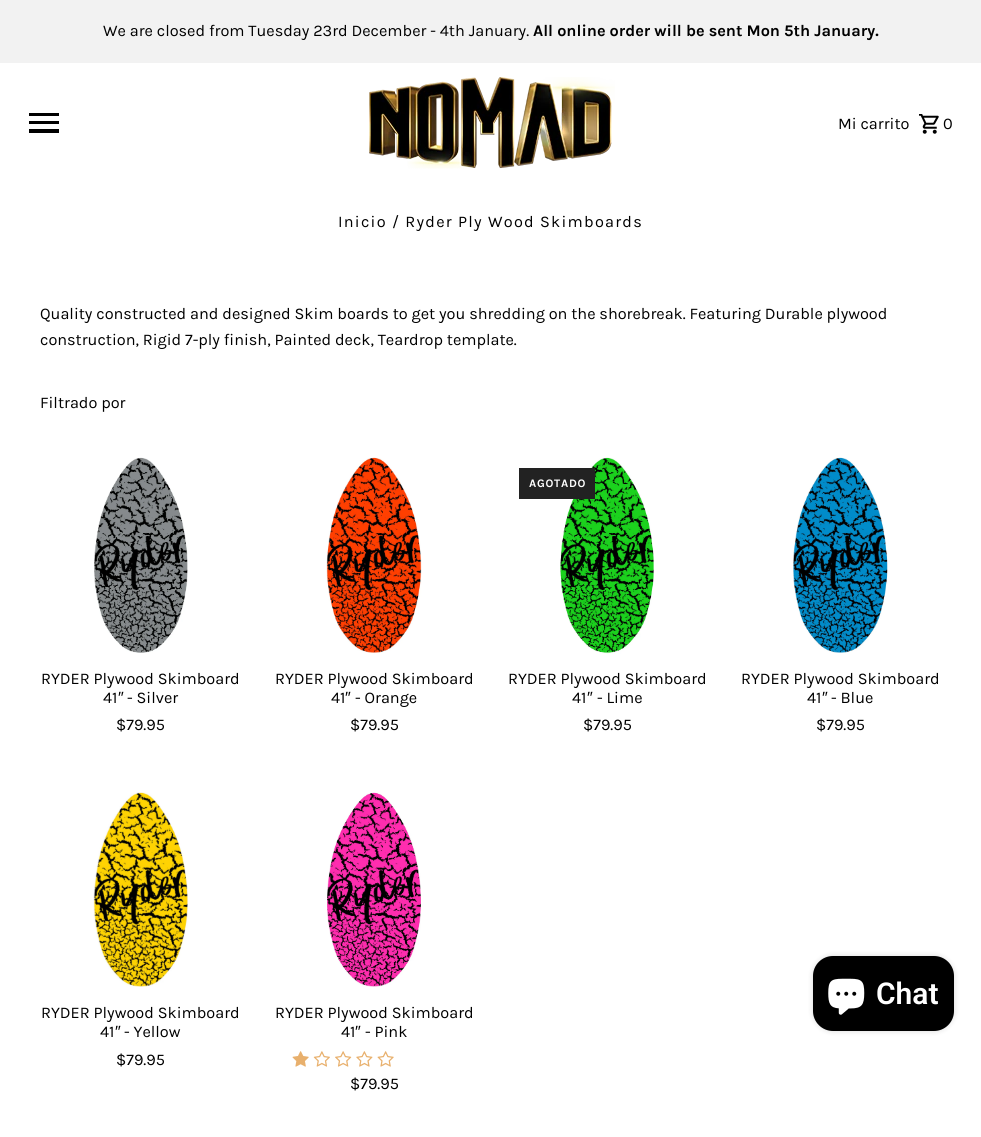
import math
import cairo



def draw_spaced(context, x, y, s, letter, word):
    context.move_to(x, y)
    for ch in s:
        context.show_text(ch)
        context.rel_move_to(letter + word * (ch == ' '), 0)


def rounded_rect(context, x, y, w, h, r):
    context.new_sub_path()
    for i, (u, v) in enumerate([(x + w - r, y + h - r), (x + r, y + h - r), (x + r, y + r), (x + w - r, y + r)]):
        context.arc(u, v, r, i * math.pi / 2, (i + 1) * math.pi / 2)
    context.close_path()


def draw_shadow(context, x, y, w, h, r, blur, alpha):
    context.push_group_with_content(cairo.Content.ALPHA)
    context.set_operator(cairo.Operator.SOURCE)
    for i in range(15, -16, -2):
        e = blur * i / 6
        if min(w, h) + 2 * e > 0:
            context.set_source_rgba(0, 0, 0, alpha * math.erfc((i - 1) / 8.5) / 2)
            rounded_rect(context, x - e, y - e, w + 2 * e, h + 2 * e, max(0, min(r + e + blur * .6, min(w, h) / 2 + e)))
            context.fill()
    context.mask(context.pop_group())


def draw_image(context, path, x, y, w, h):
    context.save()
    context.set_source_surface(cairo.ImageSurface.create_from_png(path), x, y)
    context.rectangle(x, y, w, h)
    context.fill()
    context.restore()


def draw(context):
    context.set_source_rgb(1, 1, 1)
    context.paint()
    context.set_source_rgb(242 / 255, 242 / 255, 242 / 255)
    context.rectangle(0, 0, 981, 63)
    context.fill()
    context.set_source_rgb(0, 0, 0)
    context.rectangle(29, 129, 30, 4)
    context.fill()
    context.rectangle(29, 121, 30, 3)
    context.fill()
    context.rectangle(29, 113, 30, 3)
    context.fill()
    draw_image(context, "images/1.png", 369, 77, 246, 92)
    draw_image(context, "images/2.png", 919, 114, 20, 20)
    draw_image(context, "images/3.png", 94, 457, 94, 196)
    draw_image(context, "images/4.png", 326, 457, 96, 196)
    draw_image(context, "images/5.png", 560, 457, 94, 197)
    context.set_source_rgb(34 / 255, 34 / 255, 34 / 255)
    context.rectangle(519, 468, 76, 31)
    context.fill()
    draw_image(context, "images/6.png", 793, 457, 95, 196)
    draw_image(context, "images/7.png", 93, 792, 95, 195)
    draw_image(context, "images/8.png", 327, 792, 94, 195)
    draw_image(context, "images/9.png", 292, 1051, 17, 16)
    draw_image(context, "images/10.png", 313, 1051, 17, 16)
    draw_image(context, "images/11.png", 335, 1051, 17, 16)
    draw_image(context, "images/12.png", 356, 1051, 17, 16)
    draw_image(context, "images/13.png", 377, 1051, 17, 16)
    context.set_source_rgb(0, 0, 0)
    draw_shadow(context, 813, 956, 141, 75, 20, 3, 0.15)
    context.set_source_rgb(0, 0, 0)
    rounded_rect(context, 813, 956, 141, 75, 20)
    context.fill()
    draw_image(context, "images/14.png", 828, 978, 37, 37)
    context.select_font_face("Karla")
    context.set_font_size(16.25)
    context.move_to(103, 36)
    context.show_text("We are closed from Tuesday 23rd December - 4th January.")
    context.select_font_face("Karla", cairo.FontSlant.NORMAL, cairo.FontWeight.BOLD)
    context.move_to(533, 36)
    context.show_text("All online order will be sent Mon 5th January.")
    context.select_font_face("Karla")
    context.move_to(838, 129)
    context.show_text("Mi carrito")
    context.move_to(943, 129)
    context.show_text("0")
    draw_spaced(context, 338, 227, "Inicio / Ryder Ply Wood Skimboards", 1.25, 0)
    context.move_to(40, 319)
    context.show_text("Quality constructed and designed Skim boards to get you shredding on the shorebreak. Featuring Durable plywood")
    context.move_to(40, 345)
    context.show_text("construction, Rigid 7-ply finish, Painted deck, Teardrop template.")
    context.move_to(40, 408)
    context.show_text("Filtrado por")
    context.move_to(41, 684)
    context.show_text("RYDER Plywood Skimboard")
    context.move_to(103, 703)
    context.show_text("41")
    context.select_font_face("Liberation Sans")
    context.move_to(118, 703)
    context.show_text("″")
    context.select_font_face("Karla")
    context.move_to(127, 703)
    context.show_text("- Silver")
    context.move_to(116, 730)
    context.show_text("$79.95")
    context.move_to(275, 684)
    context.show_text("RYDER Plywood Skimboard")
    context.move_to(331, 703)
    context.show_text("41")
    context.select_font_face("Liberation Sans")
    context.move_to(345, 703)
    context.show_text("″")
    context.select_font_face("Karla")
    context.move_to(355, 703)
    context.show_text("- Orange")
    context.move_to(350, 730)
    context.show_text("$79.95")
    context.select_font_face("Karla", cairo.FontSlant.NORMAL, cairo.FontWeight.BOLD)
    context.set_font_size(11.5)
    context.set_source_rgb(1, 1, 1)
    draw_spaced(context, 529, 487, "AGOTADO", 0.75, 0)
    context.select_font_face("Karla")
    context.set_font_size(16.25)
    context.set_source_rgb(0, 0, 0)
    context.move_to(508, 684)
    context.show_text("RYDER Plywood Skimboard")
    context.move_to(572, 703)
    context.show_text("41")
    context.select_font_face("Liberation Sans")
    context.move_to(587, 703)
    context.show_text("″")
    context.select_font_face("Karla")
    context.move_to(597, 703)
    context.show_text("- Lime")
    context.move_to(583, 730)
    context.show_text("$79.95")
    context.move_to(741, 684)
    context.show_text("RYDER Plywood Skimboard")
    context.move_to(807, 703)
    context.show_text("41")
    context.select_font_face("Liberation Sans")
    context.move_to(822, 703)
    context.show_text("″")
    context.select_font_face("Karla")
    context.move_to(831, 703)
    context.show_text("- Blue")
    context.move_to(816, 730)
    context.show_text("$79.95")
    context.move_to(41, 1018)
    context.show_text("RYDER Plywood Skimboard")
    context.move_to(100, 1037)
    context.show_text("41")
    context.select_font_face("Liberation Sans")
    context.move_to(115, 1037)
    context.show_text("″")
    context.select_font_face("Karla")
    context.move_to(124, 1037)
    context.show_text("- Yellow")
    context.move_to(116, 1065)
    context.show_text("$79.95")
    context.move_to(275, 1018)
    context.show_text("RYDER Plywood Skimboard")
    context.move_to(341, 1037)
    context.show_text("41")
    context.select_font_face("Liberation Sans")
    context.move_to(355, 1037)
    context.show_text("″")
    context.select_font_face("Karla")
    context.move_to(365, 1037)
    context.show_text("- Pink")
    context.move_to(350, 1089)
    context.show_text("$79.95")
    context.select_font_face("Roboto SemiBold")
    context.set_font_size(30)
    context.set_source_rgb(1, 1, 1)
    context.move_to(876, 1004)
    context.show_text("Chat")


surface = cairo.ImageSurface(cairo.Format.RGB24, 981, 1137)
context = cairo.Context(surface)
options = cairo.FontOptions()
options.set_hint_metrics(cairo.HintMetrics.OFF)
options.set_hint_style(cairo.HintStyle.NONE)
context.set_font_options(options)
context.set_miter_limit(4)
draw(context)
surface.write_to_png("out.png")
